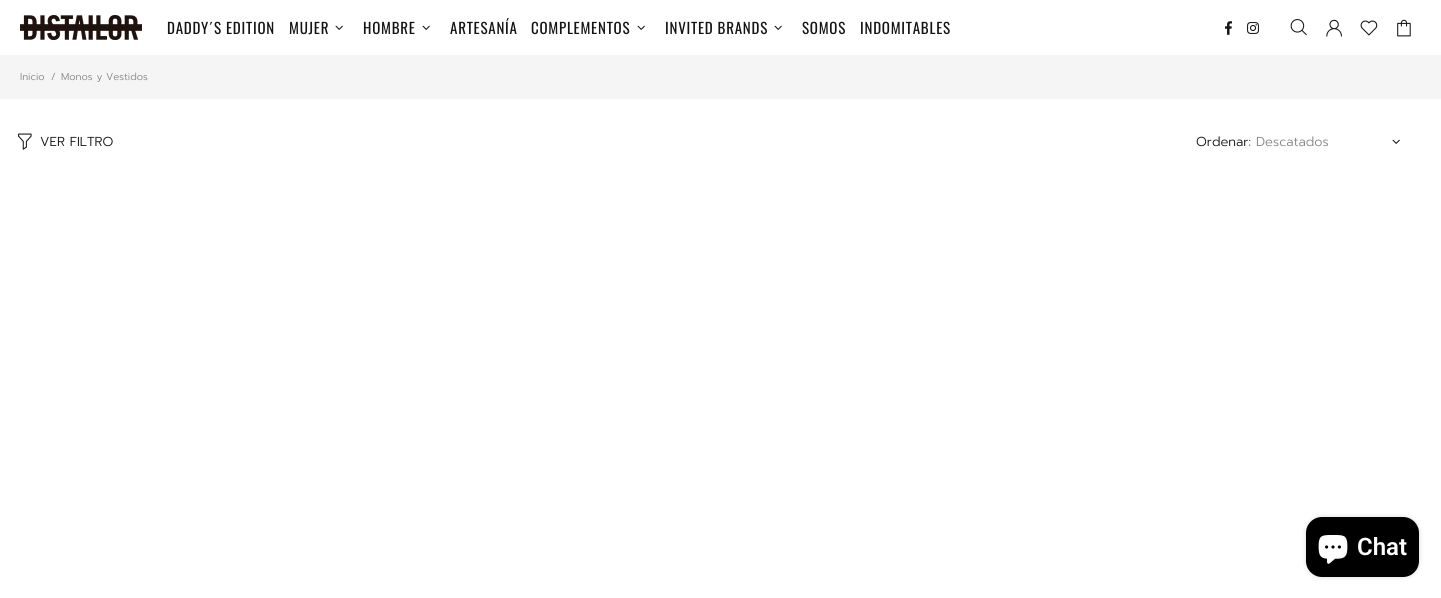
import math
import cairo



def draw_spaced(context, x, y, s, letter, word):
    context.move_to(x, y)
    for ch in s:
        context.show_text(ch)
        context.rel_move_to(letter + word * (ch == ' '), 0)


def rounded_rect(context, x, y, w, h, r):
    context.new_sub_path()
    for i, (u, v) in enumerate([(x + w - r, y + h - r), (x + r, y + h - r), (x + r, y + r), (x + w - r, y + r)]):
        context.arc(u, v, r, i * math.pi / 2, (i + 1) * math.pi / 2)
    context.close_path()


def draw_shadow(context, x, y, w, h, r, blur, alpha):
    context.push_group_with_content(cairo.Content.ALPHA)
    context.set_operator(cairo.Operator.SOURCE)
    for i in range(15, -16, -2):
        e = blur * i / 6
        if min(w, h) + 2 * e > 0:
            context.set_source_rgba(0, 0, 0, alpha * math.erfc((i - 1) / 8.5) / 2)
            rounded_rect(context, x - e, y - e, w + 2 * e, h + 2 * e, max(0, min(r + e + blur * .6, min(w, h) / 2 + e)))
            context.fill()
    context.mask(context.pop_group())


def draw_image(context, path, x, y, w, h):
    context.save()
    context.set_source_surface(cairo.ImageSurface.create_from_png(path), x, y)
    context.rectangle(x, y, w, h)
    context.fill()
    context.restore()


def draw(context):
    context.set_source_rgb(1, 1, 1)
    context.paint()
    draw_image(context, "images/1.png", 20, 15, 122, 25)
    draw_image(context, "images/2.png", 335, 25, 8, 5)
    draw_image(context, "images/2.png", 422, 25, 8, 5)
    draw_image(context, "images/2.png", 637, 25, 8, 5)
    draw_image(context, "images/2.png", 774, 25, 8, 5)
    draw_image(context, "images/3.png", 1225, 21, 7, 14)
    draw_image(context, "images/4.png", 1247, 22, 12, 12)
    draw_image(context, "images/5.png", 1290, 19, 17, 17)
    draw_image(context, "images/6.png", 1326, 19, 16, 18)
    draw_image(context, "images/7.png", 1360, 20, 18, 16)
    draw_image(context, "images/8.png", 1397, 19, 14, 18)
    context.set_source_rgb(245 / 255, 245 / 255, 245 / 255)
    context.rectangle(0, 55, 1441, 44)
    context.fill()
    draw_image(context, "images/9.png", 18, 133, 14, 17)
    draw_image(context, "images/2.png", 1392, 139, 8, 5)
    context.set_source_rgb(0, 0, 0)
    draw_shadow(context, 1306, 517, 113, 60, 16, 2.5, 0.15)
    context.set_source_rgb(0, 0, 0)
    rounded_rect(context, 1306, 517, 113, 60, 16)
    context.fill()
    draw_image(context, "images/10.png", 1318, 535, 30, 29)
    context.select_font_face("Oswald")
    context.set_font_size(15)
    context.set_source_rgb(20 / 255, 20 / 255, 20 / 255)
    draw_spaced(context, 167, 34, "DADDY´S EDITION", 0.75, 0)
    draw_spaced(context, 289, 34, "MUJER", 0.75, 0)
    draw_spaced(context, 363, 34, "HOMBRE", 0.75, 0)
    draw_spaced(context, 450, 34, "ARTESANÍA", 0.75, 0)
    draw_spaced(context, 531, 34, "COMPLEMENTOS", 0.75, 0)
    draw_spaced(context, 665, 34, "INVITED BRANDS", 0.75, 0)
    draw_spaced(context, 802, 34, "SOMOS", 0.75, 0)
    draw_spaced(context, 860, 34, "INDOMITABLES", 0.75, 0)
    context.select_font_face("Prompt Light")
    context.set_font_size(10)
    context.set_source_rgb(133 / 255, 133 / 255, 133 / 255)
    context.move_to(20, 80)
    context.show_text("Inicio")
    context.move_to(51, 80)
    context.show_text("/")
    context.move_to(61, 80)
    context.show_text("Monos y Vestidos")
    context.set_font_size(13)
    context.set_source_rgb(20 / 255, 20 / 255, 20 / 255)
    context.move_to(40, 146)
    context.show_text("VER FILTRO")
    context.move_to(1196, 146)
    context.show_text("Ordenar:")
    context.set_source_rgb(133 / 255, 133 / 255, 133 / 255)
    context.move_to(1256, 146)
    context.show_text("Descatados")
    context.select_font_face("Roboto SemiBold")
    context.set_font_size(24)
    context.set_source_rgb(1, 1, 1)
    context.move_to(1357, 555)
    context.show_text("Chat")


surface = cairo.ImageSurface(cairo.Format.RGB24, 1441, 598)
context = cairo.Context(surface)
options = cairo.FontOptions()
options.set_hint_metrics(cairo.HintMetrics.OFF)
options.set_hint_style(cairo.HintStyle.NONE)
context.set_font_options(options)
context.set_miter_limit(4)
draw(context)
surface.write_to_png("out.png")
